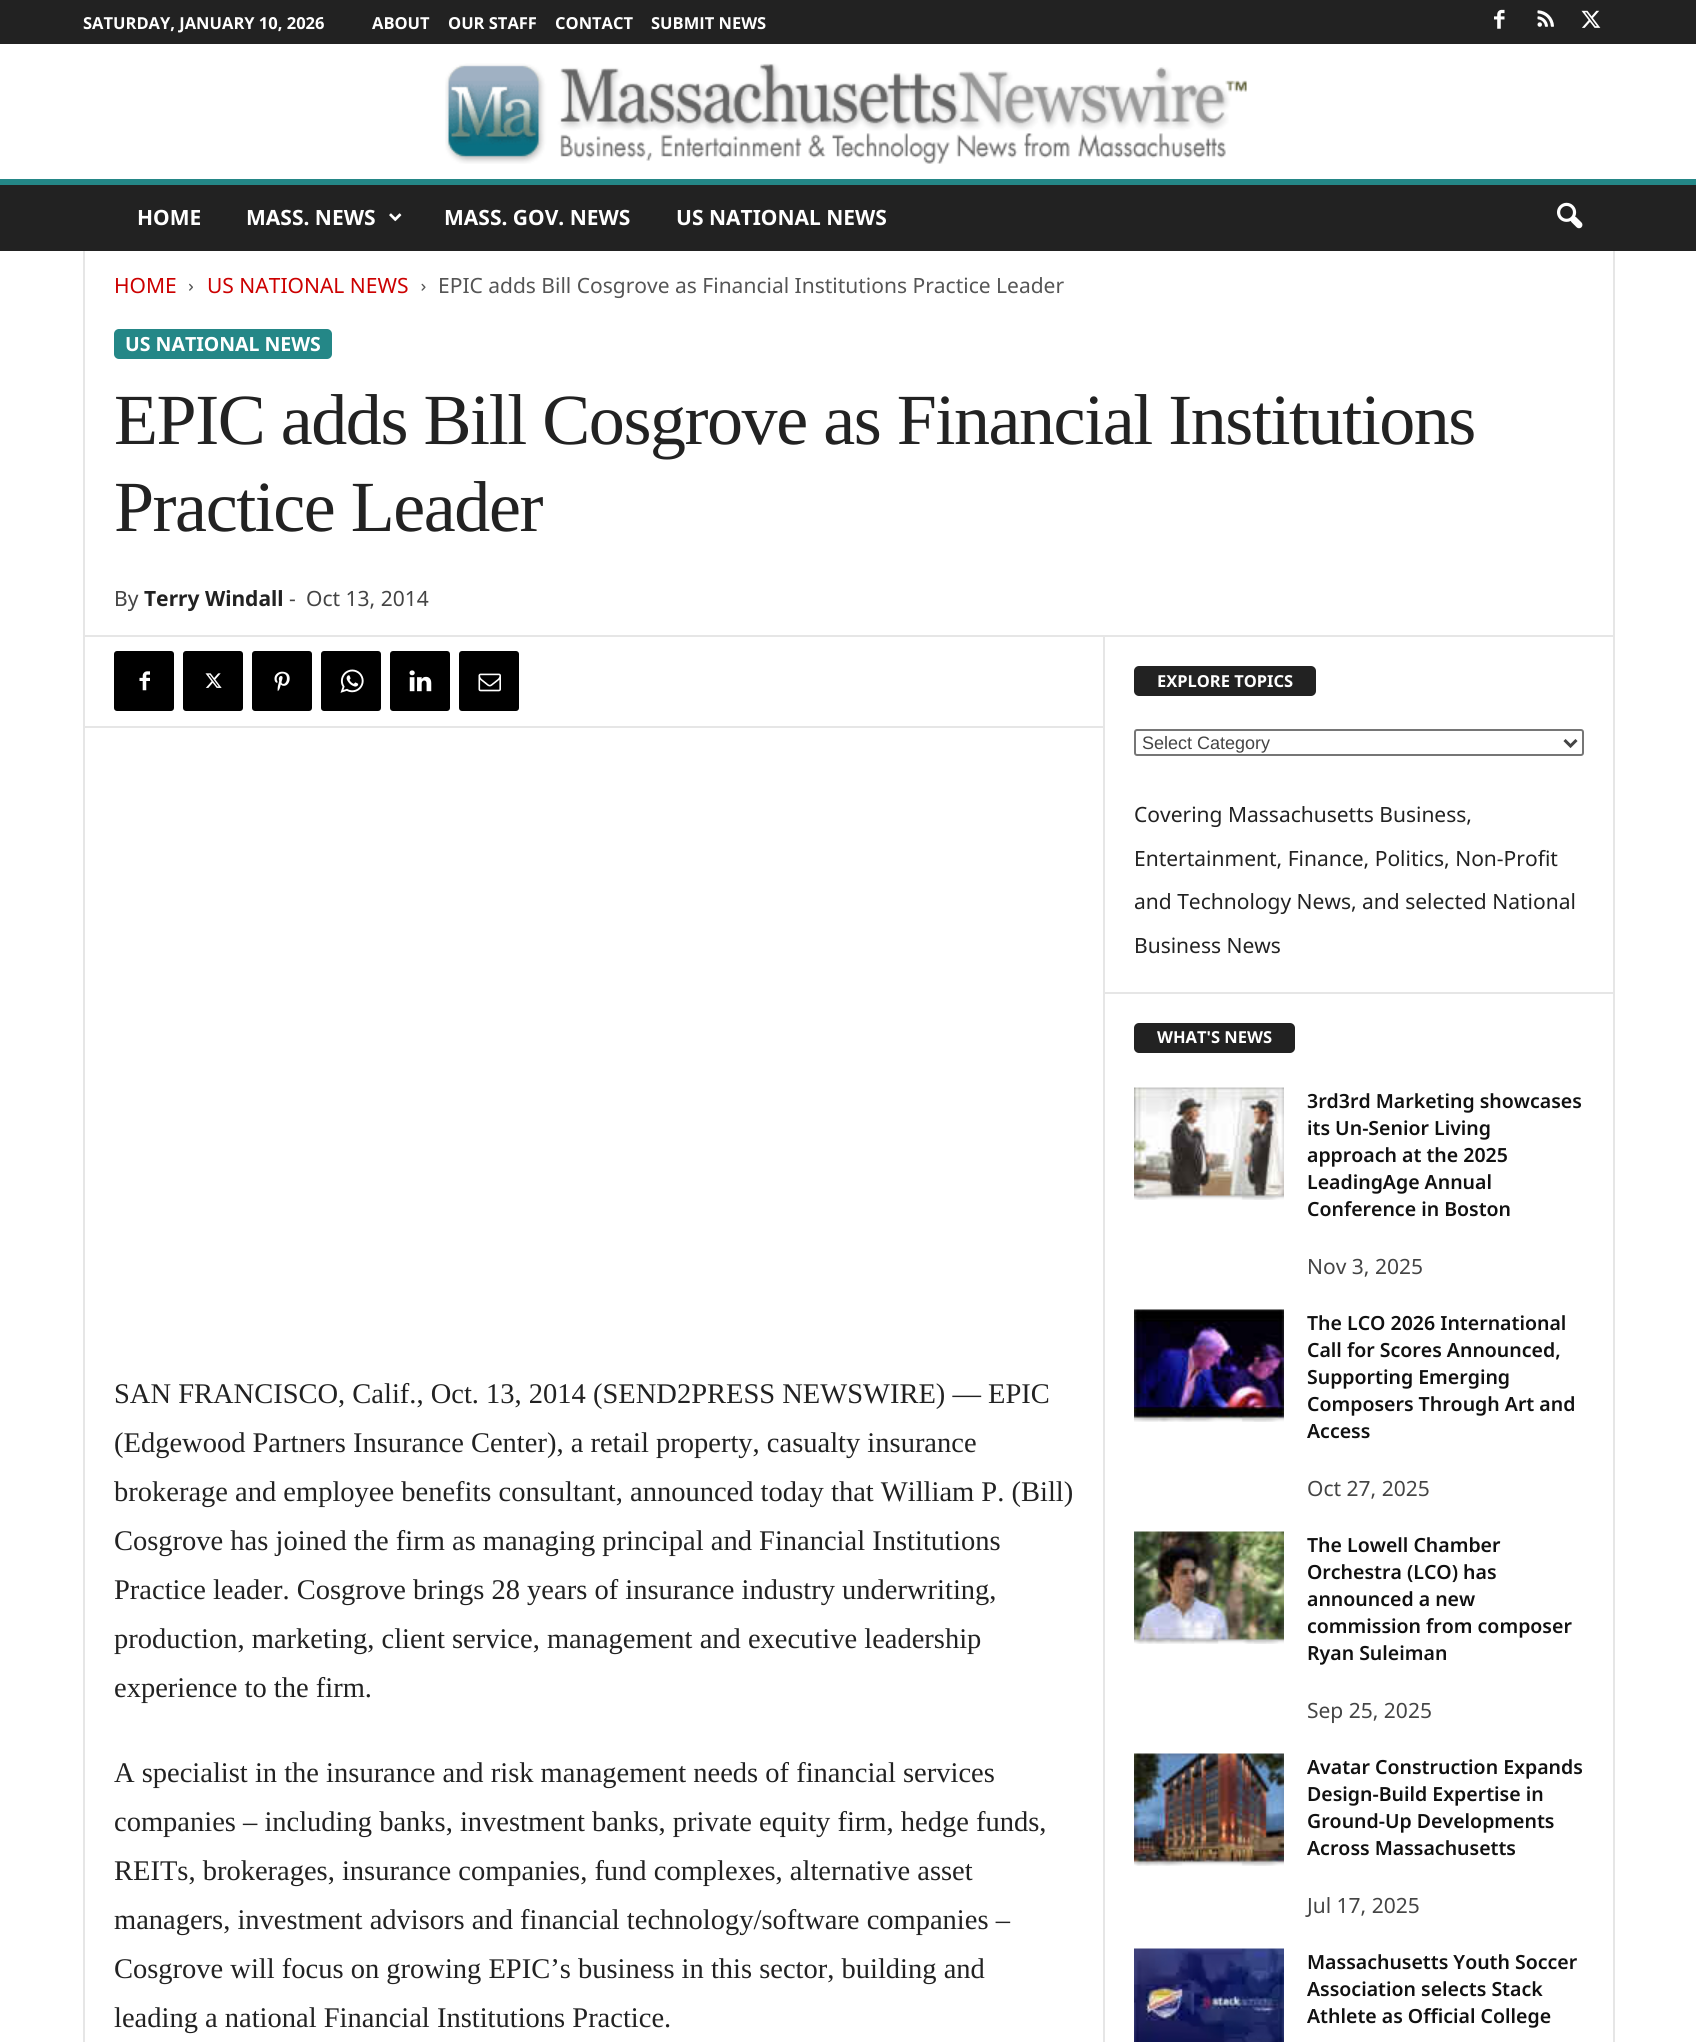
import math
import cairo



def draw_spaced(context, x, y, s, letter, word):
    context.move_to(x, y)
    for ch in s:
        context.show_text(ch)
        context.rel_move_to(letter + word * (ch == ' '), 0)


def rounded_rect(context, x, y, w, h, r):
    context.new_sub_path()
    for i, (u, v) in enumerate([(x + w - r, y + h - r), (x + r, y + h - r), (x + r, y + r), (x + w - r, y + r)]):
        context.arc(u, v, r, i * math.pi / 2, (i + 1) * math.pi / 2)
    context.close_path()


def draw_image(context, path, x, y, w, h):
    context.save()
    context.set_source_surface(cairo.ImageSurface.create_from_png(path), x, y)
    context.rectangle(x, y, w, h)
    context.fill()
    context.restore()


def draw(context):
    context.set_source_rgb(1, 1, 1)
    context.paint()
    context.set_source_rgb(34 / 255, 34 / 255, 34 / 255)
    context.rectangle(0, 0, 1696, 44)
    context.fill()
    draw_image(context, "images/1.png", 1494, 9, 11, 20)
    draw_image(context, "images/2.png", 1537, 10, 17, 17)
    draw_image(context, "images/3.png", 1581, 10, 20, 18)
    draw_image(context, "images/4.png", 445, 63, 802, 101)
    context.rectangle(0, 185, 1696, 66)
    context.fill()
    context.set_source_rgb(36 / 255, 135 / 255, 135 / 255)
    context.rectangle(0, 179, 1696, 6)
    context.fill()
    draw_image(context, "images/5.png", 389, 213, 13, 9)
    draw_image(context, "images/6.png", 1557, 202, 26, 27)
    context.set_source_rgb(230 / 255, 230 / 255, 230 / 255)
    context.rectangle(83, 251, 2, 1791)
    context.fill()
    draw_image(context, "images/7.png", 189, 283, 4, 8)
    draw_image(context, "images/8.png", 421, 283, 5, 8)
    context.set_source_rgb(36 / 255, 135 / 255, 135 / 255)
    rounded_rect(context, 114, 329, 218, 30, 5)
    context.fill()
    context.set_source_rgb(230 / 255, 230 / 255, 230 / 255)
    context.rectangle(1103, 635, 2, 1407)
    context.fill()
    context.rectangle(84, 635, 1529, 2)
    context.fill()
    context.set_source_rgb(0, 0, 0)
    rounded_rect(context, 114, 651, 60, 60, 3)
    context.fill()
    draw_image(context, "images/9.png", 139, 671, 11, 20)
    rounded_rect(context, 183, 651, 60, 60, 3)
    context.fill()
    draw_image(context, "images/10.png", 205, 673, 17, 15)
    rounded_rect(context, 252, 651, 60, 60, 3)
    context.fill()
    draw_image(context, "images/11.png", 274, 671, 16, 21)
    rounded_rect(context, 321, 651, 60, 60, 3)
    context.fill()
    draw_image(context, "images/12.png", 340, 669, 24, 24)
    rounded_rect(context, 390, 651, 60, 60, 3)
    context.fill()
    draw_image(context, "images/13.png", 409, 670, 23, 22)
    rounded_rect(context, 459, 651, 60, 60, 3)
    context.fill()
    draw_image(context, "images/14.png", 478, 673, 23, 19)
    context.set_source_rgb(230 / 255, 230 / 255, 230 / 255)
    context.rectangle(84, 726, 1019, 2)
    context.fill()
    context.set_source_rgb(34 / 255, 34 / 255, 34 / 255)
    rounded_rect(context, 1134, 666, 182, 30, 5)
    context.fill()
    rounded_rect(context, 1135, 730, 448, 25, 2)
    context.set_source_rgb(118 / 255, 118 / 255, 118 / 255)
    context.stroke()
    context.new_path()
    context.move_to(1564.5, 740)
    context.line_to(1570.5, 746)
    context.line_to(1576.5, 740)
    context.set_source_rgb(68 / 255, 68 / 255, 68 / 255)
    context.set_line_width(3)
    context.stroke()
    context.set_source_rgb(230 / 255, 230 / 255, 230 / 255)
    context.rectangle(1104, 992, 509, 2)
    context.fill()
    context.set_source_rgb(34 / 255, 34 / 255, 34 / 255)
    rounded_rect(context, 1134, 1023, 161, 30, 5)
    context.fill()
    draw_image(context, "images/15.png", 1134, 1087, 150, 113)
    draw_image(context, "images/16.png", 1134, 1309, 150, 113)
    draw_image(context, "images/17.png", 1134, 1531, 150, 113)
    draw_image(context, "images/18.png", 1134, 1753, 150, 113)
    draw_image(context, "images/19.png", 1134, 1948, 150, 94)
    context.set_source_rgb(230 / 255, 230 / 255, 230 / 255)
    context.rectangle(1613, 251, 2, 1791)
    context.fill()
    context.select_font_face("Open Sans", cairo.FontSlant.NORMAL, cairo.FontWeight.BOLD)
    context.set_font_size(16.5)
    context.set_source_rgb(1, 1, 1)
    context.move_to(83, 29)
    context.show_text("SATURDAY, JANUARY 10, 2026")
    context.move_to(372, 29)
    context.show_text("ABOUT")
    context.move_to(448, 29)
    context.show_text("OUR STAFF")
    context.move_to(555, 29)
    context.show_text("CONTACT")
    context.move_to(651, 29)
    context.show_text("SUBMIT NEWS")
    context.select_font_face("Noto Sans", cairo.FontSlant.NORMAL, cairo.FontWeight.BOLD)
    context.set_font_size(21)
    context.move_to(137, 225)
    context.show_text("HOME")
    context.move_to(246, 225)
    context.show_text("MASS. NEWS")
    context.move_to(444, 225)
    context.show_text("MASS. GOV. NEWS")
    context.move_to(676, 225)
    context.show_text("US NATIONAL NEWS")
    context.select_font_face("Noto Sans")
    context.set_source_rgb(204 / 255, 0, 0)
    context.move_to(114, 293)
    context.show_text("HOME")
    context.move_to(207, 293)
    context.show_text("US NATIONAL NEWS")
    context.set_source_rgb(85 / 255, 85 / 255, 85 / 255)
    context.move_to(438, 293)
    context.show_text("EPIC adds Bill Cosgrove as Financial Institutions Practice Leader")
    context.select_font_face("Noto Sans", cairo.FontSlant.NORMAL, cairo.FontWeight.BOLD)
    context.set_font_size(19.5)
    context.set_source_rgb(1, 1, 1)
    context.move_to(125, 351)
    context.show_text("US NATIONAL NEWS")
    context.select_font_face("Liberation Serif")
    context.set_font_size(72)
    context.set_source_rgb(34 / 255, 34 / 255, 34 / 255)
    draw_spaced(context, 114, 444, "EPIC adds Bill Cosgrove as Financial Institutions", -1.45, 0)
    draw_spaced(context, 114, 531, "Practice Leader", -1.45, 0)
    context.select_font_face("Noto Sans")
    context.set_font_size(21)
    context.set_source_rgb(68 / 255, 68 / 255, 68 / 255)
    context.move_to(114, 606)
    context.show_text("By")
    context.select_font_face("Noto Sans", cairo.FontSlant.NORMAL, cairo.FontWeight.BOLD)
    context.set_source_rgb(34 / 255, 34 / 255, 34 / 255)
    context.move_to(144, 606)
    context.show_text("Terry Windall")
    context.select_font_face("Noto Sans")
    context.set_source_rgb(68 / 255, 68 / 255, 68 / 255)
    context.move_to(289, 606)
    context.show_text("-")
    context.move_to(306, 606)
    context.show_text("Oct 13, 2014")
    context.select_font_face("Liberation Serif")
    context.set_font_size(28.5)
    context.set_source_rgb(34 / 255, 34 / 255, 34 / 255)
    context.move_to(114, 1403)
    context.show_text("SAN FRANCISCO, Calif., Oct. 13, 2014 (SEND2PRESS NEWSWIRE) — EPIC")
    context.move_to(114, 1452)
    context.show_text("(Edgewood Partners Insurance Center), a retail property, casualty insurance")
    context.move_to(114, 1501)
    context.show_text("brokerage and employee benefits consultant, announced today that William P. (Bill)")
    context.move_to(114, 1550)
    context.show_text("Cosgrove has joined the firm as managing principal and Financial Institutions")
    context.move_to(114, 1599)
    context.show_text("Practice leader. Cosgrove brings 28 years of insurance industry underwriting,")
    context.move_to(114, 1648)
    context.show_text("production, marketing, client service, management and executive leadership")
    context.move_to(114, 1697)
    context.show_text("experience to the firm.")
    context.move_to(114, 1782)
    context.show_text("A specialist in the insurance and risk management needs of financial services")
    context.move_to(114, 1831)
    context.show_text("companies – including banks, investment banks, private equity firm, hedge funds,")
    context.move_to(114, 1880)
    context.show_text("REITs, brokerages, insurance companies, fund complexes, alternative asset")
    context.move_to(114, 1929)
    context.show_text("managers, investment advisors and financial technology/software companies –")
    context.move_to(114, 1978)
    context.show_text("Cosgrove will focus on growing EPIC’s business in this sector, building and")
    context.move_to(114, 2027)
    context.show_text("leading a national Financial Institutions Practice.")
    context.select_font_face("Noto Sans", cairo.FontSlant.NORMAL, cairo.FontWeight.BOLD)
    context.set_font_size(16.5)
    context.set_source_rgb(1, 1, 1)
    context.move_to(1157, 687)
    context.show_text("EXPLORE TOPICS")
    context.select_font_face("Liberation Sans")
    context.set_font_size(18)
    context.set_source_rgb(68 / 255, 68 / 255, 68 / 255)
    context.move_to(1142, 749)
    context.show_text("Select Category")
    context.select_font_face("Noto Sans")
    context.set_font_size(21)
    context.set_source_rgb(34 / 255, 34 / 255, 34 / 255)
    context.move_to(1134, 822)
    context.show_text("Covering Massachusetts Business,")
    context.move_to(1134, 866)
    context.show_text("Entertainment, Finance, Politics, Non-Profit")
    context.move_to(1134, 909)
    context.show_text("and Technology News, and selected National")
    context.move_to(1134, 953)
    context.show_text("Business News")
    context.select_font_face("Noto Sans", cairo.FontSlant.NORMAL, cairo.FontWeight.BOLD)
    context.set_font_size(16.5)
    context.set_source_rgb(1, 1, 1)
    context.move_to(1157, 1043)
    context.show_text("WHAT'S NEWS")
    context.select_font_face("Noto Sans SemiBold")
    context.set_font_size(19.5)
    context.set_source_rgb(17 / 255, 17 / 255, 17 / 255)
    context.move_to(1307, 1108)
    context.show_text("3rd3rd Marketing showcases")
    context.move_to(1307, 1135)
    context.show_text("its Un-Senior Living")
    context.move_to(1307, 1162)
    context.show_text("approach at the 2025")
    context.move_to(1307, 1189)
    context.show_text("LeadingAge Annual")
    context.move_to(1307, 1216)
    context.show_text("Conference in Boston")
    context.select_font_face("Noto Sans")
    context.set_font_size(21)
    context.set_source_rgb(68 / 255, 68 / 255, 68 / 255)
    context.move_to(1307, 1274)
    context.show_text("Nov 3, 2025")
    context.select_font_face("Noto Sans SemiBold")
    context.set_font_size(19.5)
    context.set_source_rgb(17 / 255, 17 / 255, 17 / 255)
    context.move_to(1307, 1330)
    context.show_text("The LCO 2026 International")
    context.move_to(1307, 1357)
    context.show_text("Call for Scores Announced,")
    context.move_to(1307, 1384)
    context.show_text("Supporting Emerging")
    context.move_to(1307, 1411)
    context.show_text("Composers Through Art and")
    context.move_to(1307, 1438)
    context.show_text("Access")
    context.select_font_face("Noto Sans")
    context.set_font_size(21)
    context.set_source_rgb(68 / 255, 68 / 255, 68 / 255)
    context.move_to(1307, 1496)
    context.show_text("Oct 27, 2025")
    context.select_font_face("Noto Sans SemiBold")
    context.set_font_size(19.5)
    context.set_source_rgb(17 / 255, 17 / 255, 17 / 255)
    context.move_to(1307, 1552)
    context.show_text("The Lowell Chamber")
    context.move_to(1307, 1579)
    context.show_text("Orchestra (LCO) has")
    context.move_to(1307, 1606)
    context.show_text("announced a new")
    context.move_to(1307, 1633)
    context.show_text("commission from composer")
    context.move_to(1307, 1660)
    context.show_text("Ryan Suleiman")
    context.select_font_face("Noto Sans")
    context.set_font_size(21)
    context.set_source_rgb(68 / 255, 68 / 255, 68 / 255)
    context.move_to(1307, 1718)
    context.show_text("Sep 25, 2025")
    context.select_font_face("Noto Sans SemiBold")
    context.set_font_size(19.5)
    context.set_source_rgb(17 / 255, 17 / 255, 17 / 255)
    context.move_to(1307, 1774)
    context.show_text("Avatar Construction Expands")
    context.move_to(1307, 1801)
    context.show_text("Design-Build Expertise in")
    context.move_to(1307, 1828)
    context.show_text("Ground-Up Developments")
    context.move_to(1307, 1855)
    context.show_text("Across Massachusetts")
    context.select_font_face("Noto Sans")
    context.set_font_size(21)
    context.set_source_rgb(68 / 255, 68 / 255, 68 / 255)
    context.move_to(1307, 1913)
    context.show_text("Jul 17, 2025")
    context.select_font_face("Noto Sans SemiBold")
    context.set_font_size(19.5)
    context.set_source_rgb(17 / 255, 17 / 255, 17 / 255)
    context.move_to(1307, 1969)
    context.show_text("Massachusetts Youth Soccer")
    context.move_to(1307, 1996)
    context.show_text("Association selects Stack")
    context.move_to(1307, 2023)
    context.show_text("Athlete as Official College")


surface = cairo.ImageSurface(cairo.Format.RGB24, 1696, 2042)
context = cairo.Context(surface)
options = cairo.FontOptions()
options.set_hint_metrics(cairo.HintMetrics.OFF)
options.set_hint_style(cairo.HintStyle.NONE)
context.set_font_options(options)
context.set_miter_limit(4)
draw(context)
surface.write_to_png("out.png")
